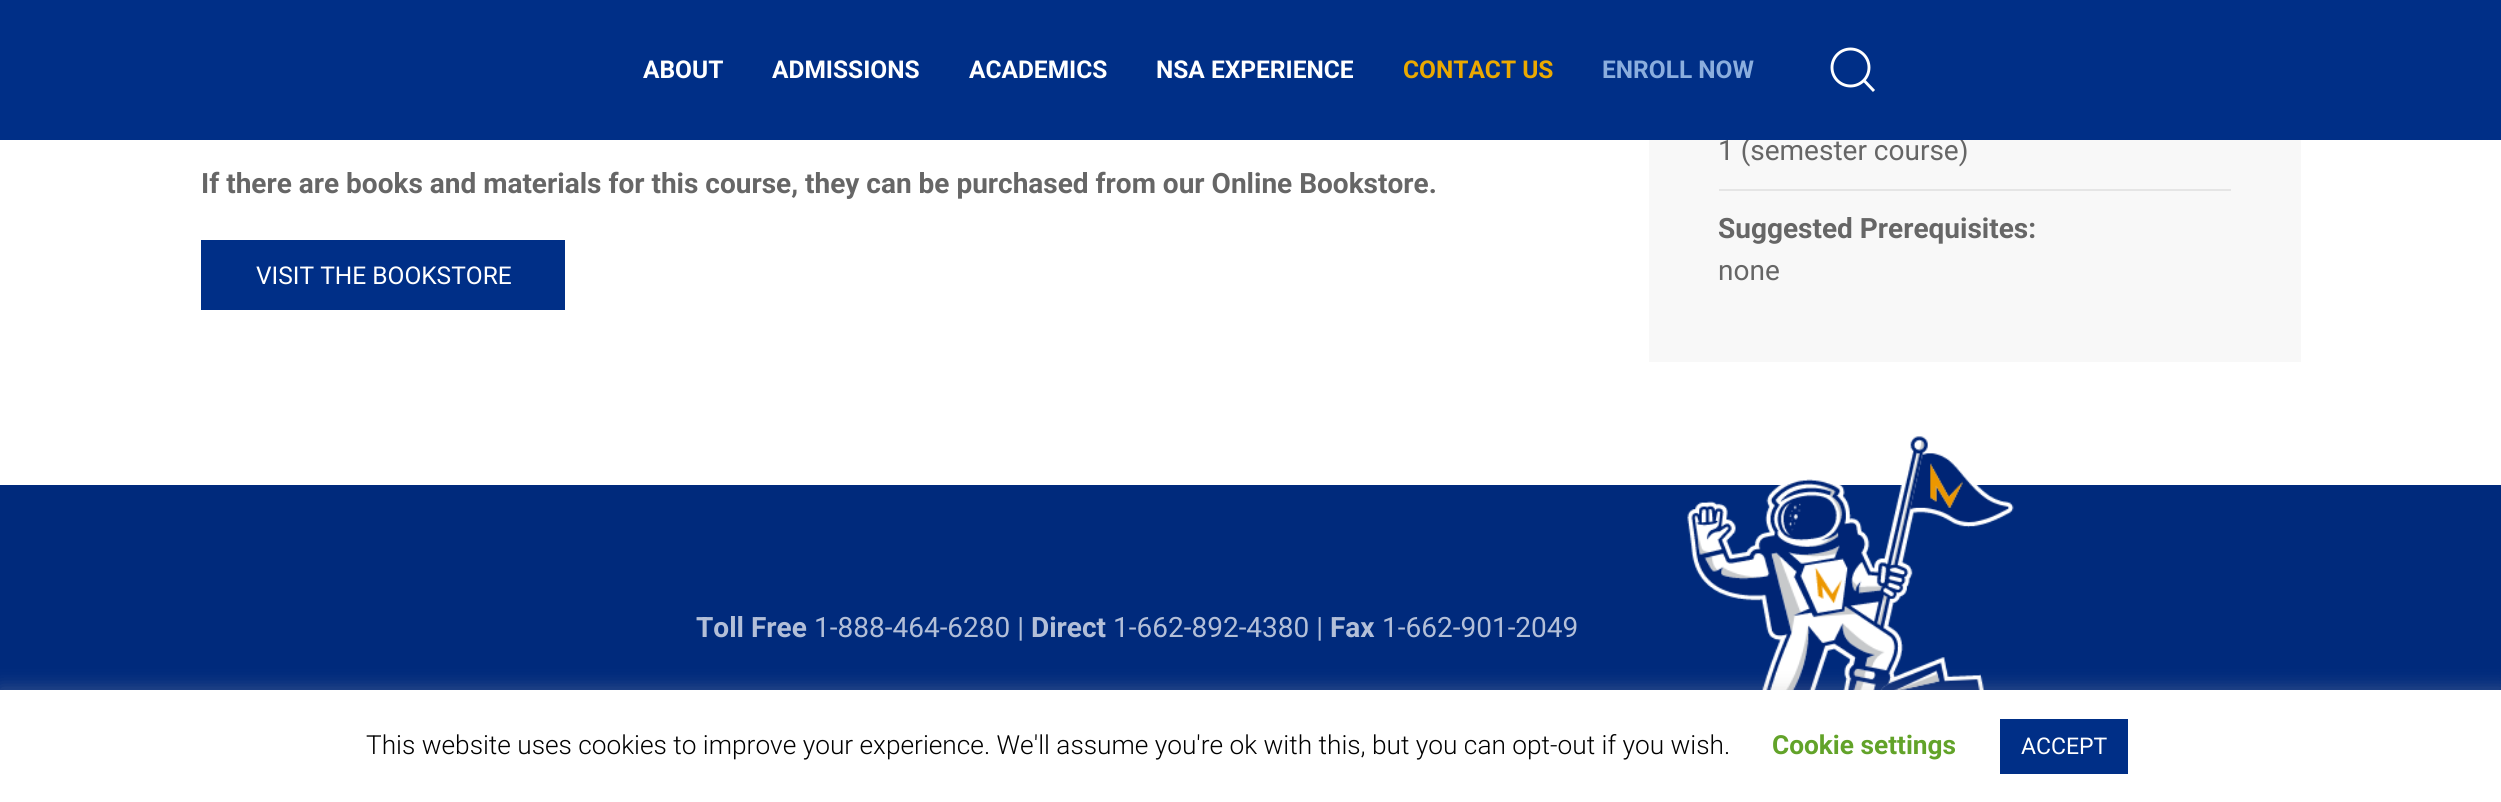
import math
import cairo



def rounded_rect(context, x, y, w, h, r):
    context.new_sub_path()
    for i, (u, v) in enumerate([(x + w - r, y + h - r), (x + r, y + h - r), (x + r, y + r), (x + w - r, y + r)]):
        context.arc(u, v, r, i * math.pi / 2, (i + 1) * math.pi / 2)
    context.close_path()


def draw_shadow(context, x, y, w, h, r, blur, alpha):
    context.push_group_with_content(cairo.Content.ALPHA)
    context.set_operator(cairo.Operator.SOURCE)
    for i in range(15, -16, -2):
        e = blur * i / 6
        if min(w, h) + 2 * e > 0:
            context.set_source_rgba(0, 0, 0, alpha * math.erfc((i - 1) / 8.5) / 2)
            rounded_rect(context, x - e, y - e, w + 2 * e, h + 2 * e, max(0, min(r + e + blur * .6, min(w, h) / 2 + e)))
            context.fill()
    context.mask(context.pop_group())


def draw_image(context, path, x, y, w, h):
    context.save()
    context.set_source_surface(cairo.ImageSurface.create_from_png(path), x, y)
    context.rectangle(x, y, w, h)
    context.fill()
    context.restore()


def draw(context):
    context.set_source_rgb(1, 1, 1)
    context.paint()
    context.set_source_rgb(0, 47 / 255, 135 / 255)
    context.rectangle(201, 240, 364, 70)
    context.fill()
    context.set_source_rgb(248 / 255, 248 / 255, 248 / 255)
    context.rectangle(1649, 140, 652, 222)
    context.fill()
    context.set_source_rgb(229 / 255, 229 / 255, 229 / 255)
    context.rectangle(1719, 189, 512, 2)
    context.fill()
    context.set_source_rgb(0, 42 / 255, 124 / 255)
    context.rectangle(0, 485, 2501, 205)
    context.fill()
    draw_image(context, "images/1.png", 1687, 436, 327, 254)
    context.set_source_rgb(172 / 255, 171 / 255, 171 / 255)
    draw_shadow(context, 0, 688, 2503, 114, 0, 9, 0.3)
    context.set_source_rgb(1, 1, 1)
    context.rectangle(0, 690, 2501, 112)
    context.fill()
    context.set_source_rgb(0, 47 / 255, 135 / 255)
    context.rectangle(2000, 719, 128, 55)
    context.fill()
    context.select_font_face("Roboto", cairo.FontSlant.NORMAL, cairo.FontWeight.BOLD)
    context.set_font_size(28)
    context.set_source_rgb(102 / 255, 102 / 255, 102 / 255)
    context.move_to(201, 193)
    context.show_text("If there are books and materials for this course, they can be purchased from our Online Bookstore.")
    context.select_font_face("Roboto")
    context.set_font_size(24.5)
    context.set_source_rgb(1, 1, 1)
    context.move_to(256, 284)
    context.show_text("VISIT THE BOOKSTORE")
    context.set_font_size(28)
    context.set_source_rgb(102 / 255, 102 / 255, 102 / 255)
    context.move_to(1718, 160)
    context.show_text("1 (semester course)")
    context.set_source_rgb(0, 47 / 255, 135 / 255)
    context.rectangle(0, 0, 2501, 140)
    context.fill()
    context.arc(1850.5, 67.5, 18.5, 0, 2 * math.pi)
    context.set_source_rgb(1, 1, 1)
    context.set_line_width(2.9)
    context.stroke()
    context.new_path()
    context.move_to(1864, 80.5)
    context.line_to(1874, 91)
    context.close_path()
    context.stroke()
    context.select_font_face("Roboto", cairo.FontSlant.NORMAL, cairo.FontWeight.BOLD)
    context.set_font_size(24.5)
    context.set_source_rgb(139 / 255, 174 / 255, 222 / 255)
    context.move_to(1602, 78)
    context.show_text("ENROLL NOW")
    context.set_source_rgb(235 / 255, 169 / 255, 0)
    context.move_to(1403, 78)
    context.show_text("CONTACT US")
    context.set_source_rgb(1, 1, 1)
    context.move_to(1156, 78)
    context.show_text("NSA EXPERIENCE")
    context.move_to(969, 78)
    context.show_text("ACADEMICS")
    context.move_to(772, 78)
    context.show_text("ADMISSIONS")
    context.move_to(643, 78)
    context.show_text("ABOUT")
    context.set_font_size(28)
    context.set_source_rgb(102 / 255, 102 / 255, 102 / 255)
    context.move_to(1718, 238)
    context.show_text("Suggested Prerequisites:")
    context.select_font_face("Roboto")
    context.move_to(1718, 280)
    context.show_text("none")
    context.select_font_face("Roboto", cairo.FontSlant.NORMAL, cairo.FontWeight.BOLD)
    context.set_source_rgb(179 / 255, 191 / 255, 216 / 255)
    context.move_to(696, 637)
    context.show_text("Toll Free")
    context.select_font_face("Roboto")
    context.move_to(814, 637)
    context.show_text("1-888-464-6280 |")
    context.select_font_face("Roboto", cairo.FontSlant.NORMAL, cairo.FontWeight.BOLD)
    context.move_to(1031, 637)
    context.show_text("Direct")
    context.select_font_face("Roboto")
    context.move_to(1113, 637)
    context.show_text("1-662-892-4380 |")
    context.select_font_face("Roboto", cairo.FontSlant.NORMAL, cairo.FontWeight.BOLD)
    context.move_to(1330, 637)
    context.show_text("Fax")
    context.select_font_face("Roboto")
    context.move_to(1382, 637)
    context.show_text("1-662-901-2049")
    context.select_font_face("Roboto Light")
    context.set_font_size(26.25)
    context.set_source_rgb(0, 0, 0)
    context.move_to(366, 754)
    context.show_text("This website uses cookies to improve your experience. We'll assume you're ok with this, but you can opt-out if you wish.")
    context.select_font_face("Roboto", cairo.FontSlant.NORMAL, cairo.FontWeight.BOLD)
    context.set_source_rgb(98 / 255, 163 / 255, 41 / 255)
    context.move_to(1772, 754)
    context.show_text("Cookie settings")
    context.select_font_face("Roboto")
    context.set_font_size(23)
    context.set_source_rgb(1, 1, 1)
    context.move_to(2021, 754)
    context.show_text("ACCEPT")


surface = cairo.ImageSurface(cairo.Format.RGB24, 2501, 802)
context = cairo.Context(surface)
options = cairo.FontOptions()
options.set_hint_metrics(cairo.HintMetrics.OFF)
options.set_hint_style(cairo.HintStyle.NONE)
context.set_font_options(options)
context.set_miter_limit(4)
draw(context)
surface.write_to_png("out.png")
